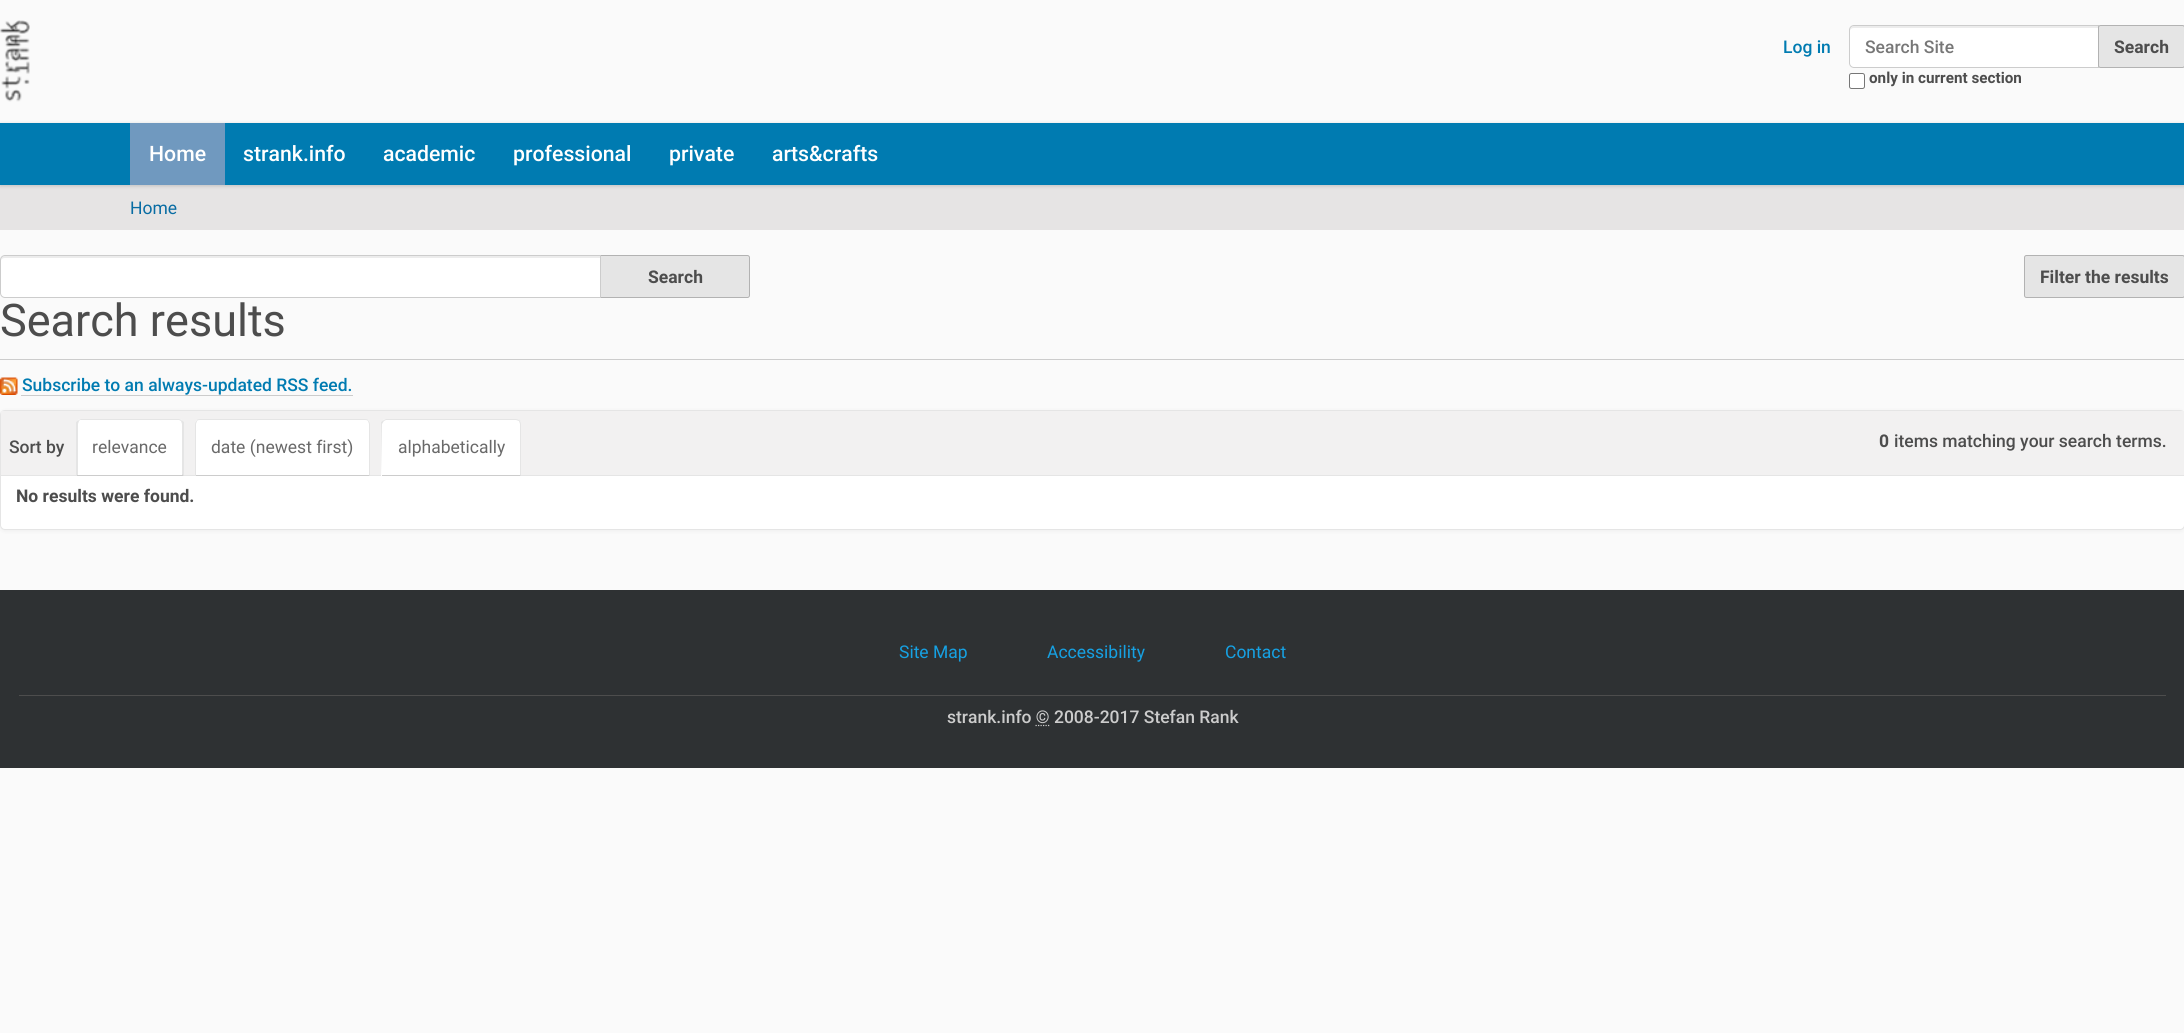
import math
import cairo



def rounded_rect(context, x, y, w, h, r):
    context.new_sub_path()
    for i, (u, v) in enumerate([(x + w - r, y + h - r), (x + r, y + h - r), (x + r, y + r), (x + w - r, y + r)]):
        context.arc(u, v, r, i * math.pi / 2, (i + 1) * math.pi / 2)
    context.close_path()


def draw_shadow(context, x, y, w, h, r, blur, alpha):
    context.push_group_with_content(cairo.Content.ALPHA)
    context.set_operator(cairo.Operator.SOURCE)
    for i in range(15, -16, -2):
        e = blur * i / 6
        if min(w, h) + 2 * e > 0:
            context.set_source_rgba(0, 0, 0, alpha * math.erfc((i - 1) / 8.5) / 2)
            rounded_rect(context, x - e, y - e, w + 2 * e, h + 2 * e, max(0, min(r + e + blur * .6, min(w, h) / 2 + e)))
            context.fill()
    context.mask(context.pop_group())


def draw_image(context, path, x, y, w, h):
    context.save()
    context.set_source_surface(cairo.ImageSurface.create_from_png(path), x, y)
    context.rectangle(x, y, w, h)
    context.fill()
    context.restore()


def draw(context):
    context.set_source_rgb(250 / 255, 250 / 255, 250 / 255)
    context.paint()
    draw_image(context, "images/1.png", 0, 20, 30, 82)
    context.set_source_rgb(1, 1, 1)
    context.new_path()
    context.move_to(1854, 25)
    context.line_to(2099, 25)
    context.line_to(2099, 68)
    context.line_to(1854, 68)
    context.curve_to(1851, 68, 1849, 66, 1849, 63)
    context.line_to(1849, 30)
    context.curve_to(1849, 27, 1851, 25, 1854, 25)
    context.close_path()
    context.fill()
    context.set_source_rgb(236 / 255, 236 / 255, 236 / 255)
    context.new_path()
    context.move_to(1854, 28)
    context.line_to(2098, 28)
    context.line_to(2098, 26)
    context.line_to(1854, 26)
    context.curve_to(1852, 26, 1850, 28, 1850, 30)
    context.line_to(1850, 31)
    context.curve_to(1850, 29, 1852, 28, 1854, 28)
    context.close_path()
    context.fill()
    context.new_path()
    context.move_to(1854, 25.5)
    context.line_to(2098.5, 25.5)
    context.line_to(2098.5, 67.5)
    context.line_to(1854, 67.5)
    context.curve_to(1851.5, 67.5, 1849.5, 65.5, 1849.5, 63)
    context.line_to(1849.5, 30)
    context.curve_to(1849.5, 27.5, 1851.5, 25.5, 1854, 25.5)
    context.close_path()
    context.set_source_rgb(204 / 255, 204 / 255, 204 / 255)
    context.set_line_width(1)
    context.stroke()
    context.set_source_rgb(229 / 255, 229 / 255, 229 / 255)
    rounded_rect(context, 2098.5, 25.5, 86, 42, 2)
    context.fill_preserve()
    context.set_source_rgb(178 / 255, 178 / 255, 178 / 255)
    context.stroke()
    context.set_source_rgb(1, 1, 1)
    rounded_rect(context, 1849.5, 73.5, 15, 15, 2)
    context.fill_preserve()
    context.set_source_rgb(118 / 255, 118 / 255, 118 / 255)
    context.stroke()
    context.set_source_rgb(230 / 255, 228 / 255, 228 / 255)
    context.rectangle(0, 185, 2184, 45)
    context.fill()
    context.set_source_rgb(0, 0, 0)
    draw_shadow(context, 0, 124, 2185, 62, 0, 2, 0.17)
    context.set_source_rgb(0, 123 / 255, 177 / 255)
    context.rectangle(0, 123, 2184, 62)
    context.fill()
    context.set_source_rgb(112 / 255, 153 / 255, 191 / 255)
    context.rectangle(130, 123, 95, 62)
    context.fill()
    context.set_source_rgb(229 / 255, 229 / 255, 229 / 255)
    context.new_path()
    context.move_to(600.5, 255.5)
    context.line_to(747.5, 255.5)
    context.curve_to(748.5, 255.5, 749.5, 256.5, 749.5, 257.5)
    context.line_to(749.5, 295.5)
    context.curve_to(749.5, 296.5, 748.5, 297.5, 747.5, 297.5)
    context.line_to(600.5, 297.5)
    context.close_path()
    context.fill_preserve()
    context.set_source_rgb(178 / 255, 178 / 255, 178 / 255)
    context.stroke()
    context.set_source_rgb(1, 1, 1)
    context.new_path()
    context.move_to(5, 255)
    context.line_to(601, 255)
    context.line_to(601, 298)
    context.line_to(5, 298)
    context.curve_to(2, 298, 0, 296, 0, 293)
    context.line_to(0, 260)
    context.curve_to(0, 257, 2, 255, 5, 255)
    context.close_path()
    context.fill()
    context.set_source_rgb(236 / 255, 236 / 255, 236 / 255)
    context.new_path()
    context.move_to(5, 258)
    context.line_to(600, 258)
    context.line_to(600, 256)
    context.line_to(5, 256)
    context.curve_to(2, 256, 1, 258, 1, 261)
    context.curve_to(1, 259, 3, 258, 5, 258)
    context.close_path()
    context.fill()
    context.new_path()
    context.move_to(5, 255.5)
    context.line_to(600.5, 255.5)
    context.line_to(600.5, 297.5)
    context.line_to(5, 297.5)
    context.curve_to(2.5, 297.5, 0.5, 295.5, 0.5, 293)
    context.line_to(0.5, 260)
    context.curve_to(0.5, 257.5, 2.5, 255.5, 5, 255.5)
    context.close_path()
    context.set_source_rgb(204 / 255, 204 / 255, 204 / 255)
    context.stroke()
    context.set_source_rgb(229 / 255, 229 / 255, 229 / 255)
    rounded_rect(context, 2024.5, 255.5, 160, 42, 2)
    context.fill_preserve()
    context.set_source_rgb(178 / 255, 178 / 255, 178 / 255)
    context.stroke()
    context.set_source_rgb(204 / 255, 204 / 255, 204 / 255)
    context.rectangle(0, 359, 2184, 1)
    context.fill()
    draw_image(context, "images/2.png", 0, 377, 18, 18)
    context.rectangle(21, 395, 332, 1)
    context.fill()
    context.set_source_rgb(0, 0, 0)
    draw_shadow(context, 0, 411, 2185, 120, 5, 2, 0.05)
    context.set_source_rgb(1, 1, 1)
    rounded_rect(context, 0.5, 410.5, 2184, 119, 4.5)
    context.fill_preserve()
    context.set_source_rgb(229 / 255, 229 / 255, 229 / 255)
    context.stroke()
    context.set_source_rgb(242 / 255, 241 / 255, 241 / 255)
    context.rectangle(1, 411, 2183, 64)
    context.fill()
    context.set_source_rgb(229 / 255, 229 / 255, 229 / 255)
    context.rectangle(1, 475, 2183, 1)
    context.fill()
    context.set_source_rgb(1, 1, 1)
    context.new_path()
    context.move_to(81, 419)
    context.line_to(179, 419)
    context.curve_to(182, 419, 184, 421, 184, 424)
    context.line_to(184, 476)
    context.line_to(76, 476)
    context.line_to(76, 424)
    context.curve_to(76, 421, 78, 419, 81, 419)
    context.close_path()
    context.fill()
    context.set_source_rgb(229 / 255, 229 / 255, 229 / 255)
    context.new_path()
    context.move_to(81, 419)
    context.line_to(78, 420)
    context.line_to(79, 421)
    context.line_to(80, 420)
    context.line_to(179, 420)
    context.line_to(181, 421)
    context.line_to(182, 420)
    context.line_to(179, 419)
    context.close_path()
    context.fill()
    context.new_path()
    context.move_to(182, 420)
    context.line_to(184, 422)
    context.line_to(184, 476)
    context.line_to(182, 474)
    context.line_to(182, 424)
    context.line_to(181, 421)
    context.close_path()
    context.fill()
    context.set_source_rgb(204 / 255, 204 / 255, 204 / 255)
    context.new_path()
    context.move_to(184, 476)
    context.line_to(76, 476)
    context.line_to(78, 474)
    context.line_to(78, 475)
    context.line_to(182, 475)
    context.line_to(182, 474)
    context.close_path()
    context.fill()
    context.set_source_rgb(229 / 255, 229 / 255, 229 / 255)
    context.new_path()
    context.move_to(76, 422)
    context.line_to(78, 420)
    context.line_to(79, 421)
    context.line_to(78, 424)
    context.line_to(78, 474)
    context.line_to(76, 476)
    context.close_path()
    context.fill()
    context.set_source_rgb(1, 1, 1)
    context.new_path()
    context.move_to(200, 419)
    context.line_to(365, 419)
    context.curve_to(368, 419, 370, 421, 370, 424)
    context.line_to(370, 476)
    context.line_to(195, 476)
    context.line_to(195, 424)
    context.curve_to(195, 421, 197, 419, 200, 419)
    context.close_path()
    context.fill()
    context.set_source_rgb(229 / 255, 229 / 255, 229 / 255)
    context.new_path()
    context.move_to(200, 419)
    context.curve_to(199, 419, 197, 419, 197, 420)
    context.line_to(197, 421)
    context.curve_to(198, 420, 199, 420, 200, 420)
    context.line_to(365, 420)
    context.curve_to(366, 420, 367, 420, 368, 421)
    context.line_to(368, 420)
    context.curve_to(368, 419, 366, 419, 365, 419)
    context.close_path()
    context.fill()
    context.new_path()
    context.move_to(368, 420)
    context.curve_to(369, 421, 370, 422, 370, 424)
    context.line_to(370, 476)
    context.line_to(369, 475)
    context.line_to(369, 424)
    context.line_to(368, 421)
    context.close_path()
    context.fill()
    context.set_source_rgb(204 / 255, 204 / 255, 204 / 255)
    context.new_path()
    context.move_to(370, 476)
    context.line_to(195, 476)
    context.line_to(196, 475)
    context.line_to(369, 475)
    context.close_path()
    context.fill()
    context.set_source_rgb(229 / 255, 229 / 255, 229 / 255)
    context.new_path()
    context.move_to(195, 424)
    context.line_to(195, 476)
    context.line_to(196, 475)
    context.line_to(196, 424)
    context.line_to(197, 421)
    context.line_to(197, 420)
    context.curve_to(196, 421, 195, 422, 195, 424)
    context.close_path()
    context.fill()
    context.set_source_rgb(1, 1, 1)
    context.new_path()
    context.move_to(386, 419)
    context.line_to(516, 419)
    context.curve_to(519, 419, 521, 421, 521, 424)
    context.line_to(521, 476)
    context.line_to(381, 476)
    context.line_to(381, 424)
    context.curve_to(381, 421, 383, 419, 386, 419)
    context.close_path()
    context.fill()
    context.set_source_rgb(229 / 255, 229 / 255, 229 / 255)
    context.new_path()
    context.move_to(386, 419)
    context.line_to(383, 420)
    context.line_to(384, 421)
    context.line_to(386, 420)
    context.line_to(516, 420)
    context.line_to(519, 421)
    context.line_to(520, 420)
    context.curve_to(519, 420, 518, 419, 516, 419)
    context.close_path()
    context.fill()
    context.new_path()
    context.move_to(521, 476)
    context.line_to(521, 424)
    context.curve_to(521, 422, 520, 421, 520, 420)
    context.line_to(519, 421)
    context.line_to(520, 424)
    context.line_to(520, 475)
    context.close_path()
    context.fill()
    context.set_source_rgb(204 / 255, 204 / 255, 204 / 255)
    context.new_path()
    context.move_to(521, 476)
    context.line_to(520, 475)
    context.line_to(382, 475)
    context.line_to(382, 476)
    context.close_path()
    context.fill()
    context.set_source_rgb(229 / 255, 229 / 255, 229 / 255)
    context.new_path()
    context.move_to(381, 422)
    context.line_to(383, 420)
    context.line_to(384, 421)
    context.line_to(382, 424)
    context.line_to(382, 475)
    context.line_to(382, 476)
    context.close_path()
    context.fill()
    context.set_source_rgb(46 / 255, 49 / 255, 51 / 255)
    context.rectangle(0, 590, 2184, 178)
    context.fill()
    context.set_source_rgb(77 / 255, 77 / 255, 77 / 255)
    context.rectangle(19, 695, 2147, 1)
    context.fill()
    context.new_path()
    context.move_to(1035.5, 725.5)
    context.line_to(1049.5, 725.5)
    context.set_source_rgb(204 / 255, 204 / 255, 204 / 255)
    context.set_line_width(1.2)
    context.set_dash([1.25, 1.25])
    context.stroke()
    context.select_font_face("Roboto Medium")
    context.set_font_size(17.5)
    context.set_source_rgb(0, 123 / 255, 177 / 255)
    context.move_to(1783, 53)
    context.show_text("Log in")
    context.set_source_rgb(119 / 255, 119 / 255, 119 / 255)
    context.move_to(1865, 53)
    context.show_text("Search Site")
    context.select_font_face("Roboto", cairo.FontSlant.NORMAL, cairo.FontWeight.BOLD)
    context.set_source_rgb(77 / 255, 77 / 255, 77 / 255)
    context.move_to(2114, 53)
    context.show_text("Search")
    context.set_font_size(15.25)
    context.move_to(1869, 83)
    context.show_text("only in current section")
    context.select_font_face("Roboto Medium")
    context.set_font_size(21.25)
    context.set_source_rgb(1, 1, 1)
    context.move_to(149, 161)
    context.show_text("Home")
    context.move_to(243, 161)
    context.show_text("strank.info")
    context.move_to(383, 161)
    context.show_text("academic")
    context.move_to(513, 161)
    context.show_text("professional")
    context.move_to(669, 161)
    context.show_text("private")
    context.move_to(772, 161)
    context.show_text("arts&crafts")
    context.select_font_face("Roboto")
    context.set_font_size(17.5)
    context.set_source_rgb(8 / 255, 108 / 255, 163 / 255)
    context.move_to(130, 214)
    context.show_text("Home")
    context.select_font_face("Roboto", cairo.FontSlant.NORMAL, cairo.FontWeight.BOLD)
    context.set_source_rgb(77 / 255, 77 / 255, 77 / 255)
    context.move_to(648, 283)
    context.show_text("Search")
    context.move_to(2040, 283)
    context.show_text("Filter the results")
    context.select_font_face("Roboto")
    context.set_font_size(45)
    context.move_to(0, 336)
    context.show_text("Search results")
    context.select_font_face("Roboto Medium")
    context.set_font_size(17.5)
    context.set_source_rgb(0, 123 / 255, 177 / 255)
    context.move_to(22, 391)
    context.show_text("Subscribe to an always-updated RSS feed.")
    context.set_source_rgb(77 / 255, 77 / 255, 77 / 255)
    context.move_to(9, 453)
    context.show_text("Sort by")
    context.select_font_face("Roboto")
    context.set_source_rgb(105 / 255, 105 / 255, 105 / 255)
    context.move_to(92, 453)
    context.show_text("relevance")
    context.move_to(211, 453)
    context.show_text("date (newest first)")
    context.move_to(398, 453)
    context.show_text("alphabetically")
    context.select_font_face("Roboto", cairo.FontSlant.NORMAL, cairo.FontWeight.BOLD)
    context.set_source_rgb(77 / 255, 77 / 255, 77 / 255)
    context.move_to(16, 502)
    context.show_text("No results were found.")
    context.move_to(1879, 447)
    context.show_text("0")
    context.select_font_face("Roboto Medium")
    context.move_to(1894, 447)
    context.show_text("items matching your search terms.")
    context.select_font_face("Roboto")
    context.set_source_rgb(22 / 255, 161 / 255, 227 / 255)
    context.move_to(899, 658)
    context.show_text("Site Map")
    context.move_to(1047, 658)
    context.show_text("Accessibility")
    context.move_to(1225, 658)
    context.show_text("Contact")
    context.select_font_face("Roboto Medium")
    context.set_source_rgb(204 / 255, 204 / 255, 204 / 255)
    context.move_to(947, 723)
    context.show_text("strank.info © 2008-2017 Stefan Rank")


surface = cairo.ImageSurface(cairo.Format.RGB24, 2184, 1033)
context = cairo.Context(surface)
options = cairo.FontOptions()
options.set_hint_metrics(cairo.HintMetrics.OFF)
options.set_hint_style(cairo.HintStyle.NONE)
context.set_font_options(options)
context.set_miter_limit(4)
draw(context)
surface.write_to_png("out.png")
